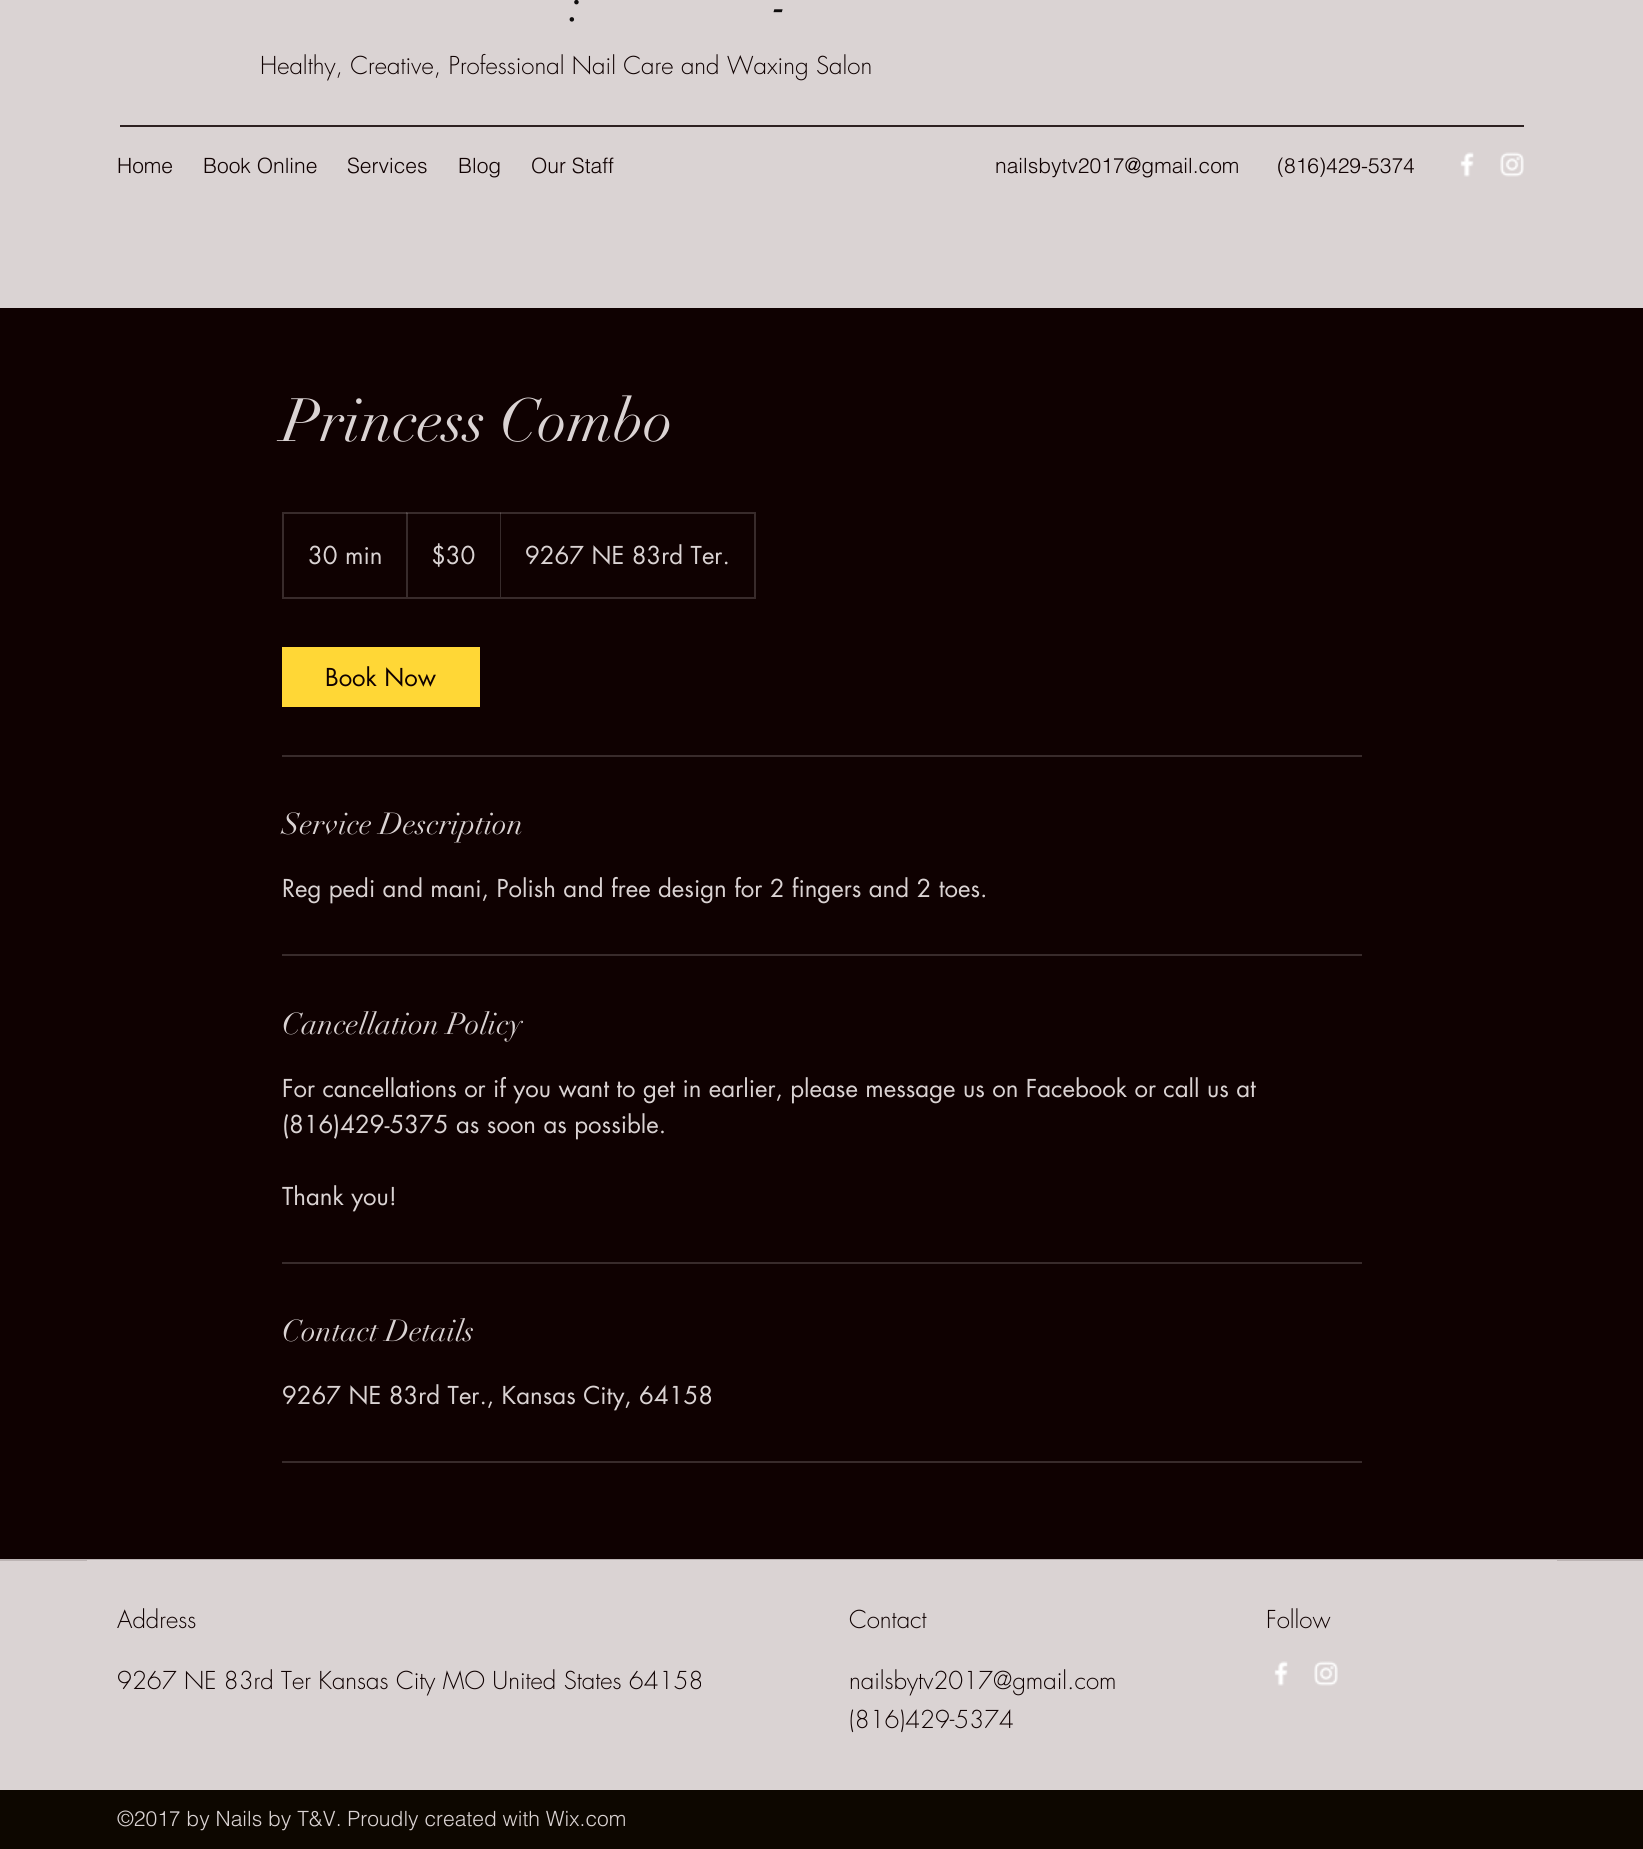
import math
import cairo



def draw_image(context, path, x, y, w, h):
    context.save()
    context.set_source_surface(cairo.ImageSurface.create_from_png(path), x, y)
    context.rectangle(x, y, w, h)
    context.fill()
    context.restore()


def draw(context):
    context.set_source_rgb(15 / 255, 1 / 255, 1 / 255)
    context.paint()
    context.set_source_rgb(218 / 255, 211 / 255, 211 / 255)
    context.rectangle(0, 0, 1643, 308)
    context.fill()
    context.set_source_rgb(45 / 255, 33 / 255, 33 / 255)
    context.rectangle(120, 125, 1404, 2)
    context.fill()
    draw_image(context, "images/1.png", 1460, 152, 14, 25)
    draw_image(context, "images/2.png", 1500, 152, 24, 25)
    context.rectangle(283, 513, 472, 85)
    context.set_source_rgb(56 / 255, 43 / 255, 43 / 255)
    context.stroke()
    context.set_source_rgba(218 / 255, 211 / 255, 211 / 255, 0.2)
    context.new_path()
    context.move_to(406, 597)
    context.line_to(406, 512)
    context.line_to(408, 513)
    context.line_to(408, 597)
    context.close_path()
    context.fill()
    context.new_path()
    context.move_to(500, 597)
    context.line_to(500, 512)
    context.line_to(501, 513)
    context.line_to(501, 597)
    context.close_path()
    context.fill()
    context.set_source_rgb(1, 215 / 255, 54 / 255)
    context.rectangle(282, 647, 198, 60)
    context.fill()
    context.set_source_rgb(56 / 255, 43 / 255, 43 / 255)
    context.rectangle(282, 755, 1080, 2)
    context.fill()
    context.rectangle(282, 954, 1080, 2)
    context.fill()
    context.rectangle(282, 1262, 1080, 2)
    context.fill()
    context.rectangle(282, 1461, 1080, 2)
    context.fill()
    context.set_source_rgb(218 / 255, 211 / 255, 211 / 255)
    context.rectangle(0, 1561, 1643, 229)
    context.fill()
    context.set_source_rgb(188 / 255, 180 / 255, 180 / 255)
    context.rectangle(0, 1559, 1643, 2)
    context.fill()
    context.set_source_rgb(218 / 255, 211 / 255, 211 / 255)
    context.rectangle(87, 1560, 1470, 1)
    context.fill()
    draw_image(context, "images/1.png", 1274, 1661, 14, 25)
    draw_image(context, "images/3.png", 1314, 1661, 24, 25)
    context.set_source_rgb(13 / 255, 7 / 255, 0)
    context.rectangle(0, 1790, 1643, 59)
    context.fill()
    context.select_font_face("didot")
    context.set_font_size(48)
    context.set_source_rgb(15 / 255, 13 / 255, 13 / 255)
    context.move_to(569, 21)
    context.show_text(":")
    context.move_to(771, 21)
    context.show_text("-")
    context.select_font_face("futura Light")
    context.set_font_size(24)
    context.set_source_rgb(15 / 255, 1 / 255, 1 / 255)
    context.move_to(260, 74)
    context.show_text("Healthy, Creative, Professional Nail Care and Waxing Salon")
    context.select_font_face("helvetica Light")
    context.set_font_size(21)
    context.move_to(117, 173)
    context.show_text("Home")
    context.move_to(203, 173)
    context.show_text("Book Online")
    context.move_to(347, 173)
    context.show_text("Services")
    context.move_to(458, 173)
    context.show_text("Blog")
    context.move_to(531, 173)
    context.show_text("Our Staff")
    context.move_to(995, 173)
    context.show_text("nailsbytv2017@gmail.com")
    context.move_to(1277, 173)
    context.show_text("(816)429-5374")
    context.select_font_face("didot")
    context.set_font_size(60)
    context.set_source_rgb(218 / 255, 211 / 255, 211 / 255)
    context.move_to(282, 441)
    context.show_text("Princess Combo")
    context.select_font_face("futura")
    context.set_font_size(24)
    context.move_to(308, 564)
    context.show_text("30 min")
    context.move_to(431, 564)
    context.show_text("$30")
    context.move_to(525, 564)
    context.show_text("9267 NE 83rd Ter.")
    context.set_source_rgb(15 / 255, 1 / 255, 1 / 255)
    context.move_to(325, 686)
    context.show_text("Book Now")
    context.select_font_face("didot")
    context.set_font_size(30)
    context.set_source_rgb(218 / 255, 211 / 255, 211 / 255)
    context.move_to(282, 834)
    context.show_text("Service Description")
    context.select_font_face("futura")
    context.set_font_size(24)
    context.move_to(282, 897)
    context.show_text("Reg pedi and mani, Polish and free design for 2 fingers and 2 toes.")
    context.select_font_face("didot")
    context.set_font_size(30)
    context.move_to(282, 1034)
    context.show_text("Cancellation Policy")
    context.select_font_face("futura")
    context.set_font_size(24)
    context.move_to(282, 1097)
    context.show_text("For cancellations or if you want to get in earlier, please message us on Facebook or call us at")
    context.move_to(282, 1133)
    context.show_text("(816)429-5375 as soon as possible.")
    context.move_to(282, 1205)
    context.show_text("Thank you!")
    context.select_font_face("didot")
    context.set_font_size(30)
    context.move_to(282, 1341)
    context.show_text("Contact Details")
    context.select_font_face("futura")
    context.set_font_size(24)
    context.move_to(282, 1404)
    context.show_text("9267 NE 83rd Ter., Kansas City, 64158")
    context.select_font_face("futura Light")
    context.set_source_rgb(15 / 255, 1 / 255, 1 / 255)
    context.move_to(117, 1628)
    context.show_text("Address")
    context.move_to(849, 1628)
    context.show_text("Contact")
    context.move_to(1266, 1628)
    context.show_text("Follow")
    context.move_to(117, 1689)
    context.show_text("9267 NE 83rd Ter Kansas City MO United States 64158")
    context.move_to(849, 1689)
    context.show_text("nailsbytv2017@gmail.com")
    context.move_to(849, 1728)
    context.show_text("(816)429-5374")
    context.select_font_face("helvetica Light")
    context.set_font_size(21)
    context.set_source_rgb(218 / 255, 211 / 255, 211 / 255)
    context.move_to(117, 1826)
    context.show_text("©2017 by Nails by T&V. Proudly created with Wix.com")


surface = cairo.ImageSurface(cairo.Format.RGB24, 1643, 1849)
context = cairo.Context(surface)
options = cairo.FontOptions()
options.set_hint_metrics(cairo.HintMetrics.OFF)
options.set_hint_style(cairo.HintStyle.NONE)
context.set_font_options(options)
context.set_miter_limit(4)
draw(context)
surface.write_to_png("out.png")
